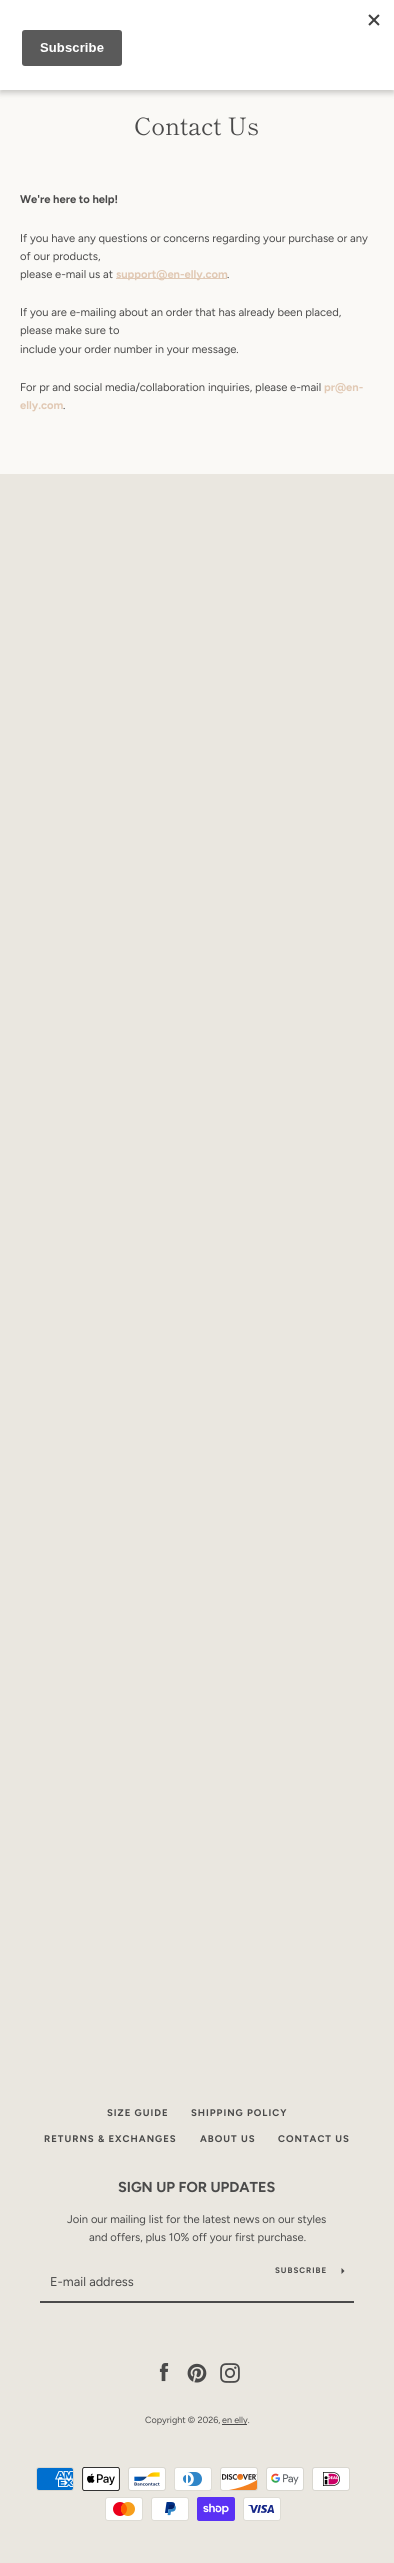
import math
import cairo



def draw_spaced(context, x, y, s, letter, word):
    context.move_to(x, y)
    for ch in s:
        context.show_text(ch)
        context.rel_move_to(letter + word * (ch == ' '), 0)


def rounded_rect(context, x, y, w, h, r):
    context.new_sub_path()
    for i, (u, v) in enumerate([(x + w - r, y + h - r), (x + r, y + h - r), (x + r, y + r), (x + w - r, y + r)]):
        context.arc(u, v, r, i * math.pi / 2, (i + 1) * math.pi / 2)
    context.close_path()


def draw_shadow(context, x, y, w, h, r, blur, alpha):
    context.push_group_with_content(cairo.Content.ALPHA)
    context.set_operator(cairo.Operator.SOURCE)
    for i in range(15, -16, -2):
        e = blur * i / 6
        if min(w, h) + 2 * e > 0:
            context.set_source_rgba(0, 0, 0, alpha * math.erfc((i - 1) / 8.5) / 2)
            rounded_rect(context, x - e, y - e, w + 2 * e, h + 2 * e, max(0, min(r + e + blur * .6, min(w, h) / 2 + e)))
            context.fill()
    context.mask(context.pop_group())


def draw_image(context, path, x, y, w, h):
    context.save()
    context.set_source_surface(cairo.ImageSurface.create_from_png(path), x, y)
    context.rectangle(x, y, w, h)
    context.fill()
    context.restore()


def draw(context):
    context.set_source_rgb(234 / 255, 231 / 255, 224 / 255)
    context.paint()
    context.set_source_rgb(250 / 255, 249 / 255, 246 / 255)
    context.rectangle(0, 90, 394, 384)
    context.fill()
    context.set_source_rgb(0, 0, 0)
    draw_shadow(context, 0, 3, 394, 90, 0, 3, 0.2)
    context.set_source_rgb(1, 1, 1)
    context.rectangle(0, 0, 394, 90)
    context.fill()
    draw_image(context, "images/1.png", 22, 14, 358, 52)
    context.set_source_rgb(225 / 255, 201 / 255, 180 / 255)
    context.rectangle(116, 278, 111, 1)
    context.fill()
    context.set_source_rgb(74 / 255, 74 / 255, 74 / 255)
    context.rectangle(40, 2301, 314, 2)
    context.fill()
    context.new_path()
    context.move_to(344.5, 2271)
    context.line_to(341.5, 2274)
    context.line_to(341.5, 2268)
    context.close_path()
    context.fill()
    draw_image(context, "images/2.png", 159, 2363, 10, 19)
    draw_image(context, "images/3.png", 187, 2363, 20, 20)
    draw_image(context, "images/4.png", 220, 2363, 20, 20)
    context.rectangle(222, 2424, 25, 1)
    context.fill()
    draw_image(context, "images/5.png", 36, 2467, 38, 24)
    draw_image(context, "images/6.png", 82, 2467, 38, 24)
    draw_image(context, "images/7.png", 128, 2467, 38, 24)
    draw_image(context, "images/8.png", 174, 2467, 38, 24)
    draw_image(context, "images/9.png", 220, 2467, 38, 24)
    draw_image(context, "images/10.png", 266, 2467, 38, 24)
    draw_image(context, "images/11.png", 312, 2467, 38, 24)
    draw_image(context, "images/12.png", 105, 2497, 38, 24)
    draw_image(context, "images/13.png", 151, 2497, 38, 24)
    draw_image(context, "images/14.png", 197, 2497, 38, 24)
    draw_image(context, "images/15.png", 243, 2497, 38, 24)
    context.select_font_face("Shippori Mincho")
    context.set_font_size(24)
    context.move_to(134, 135)
    context.show_text("Contact Us")
    context.select_font_face("Figtree", cairo.FontSlant.NORMAL, cairo.FontWeight.BOLD)
    context.set_font_size(11.2)
    context.move_to(20, 203)
    context.show_text("We're here to help!")
    context.select_font_face("Figtree")
    context.move_to(20, 242)
    context.show_text("If you have any questions or concerns regarding your purchase or any")
    context.move_to(20, 260)
    context.show_text("of our products,")
    context.move_to(20, 278)
    context.show_text("please e-mail us at")
    context.select_font_face("Figtree", cairo.FontSlant.NORMAL, cairo.FontWeight.BOLD)
    context.set_source_rgb(225 / 255, 201 / 255, 180 / 255)
    context.move_to(116, 278)
    context.show_text("support@en-elly.com")
    context.select_font_face("Figtree")
    context.set_source_rgb(74 / 255, 74 / 255, 74 / 255)
    context.move_to(227, 278)
    context.show_text(".")
    context.move_to(20, 316)
    context.show_text("If you are e-mailing about an order that has already been placed,")
    context.move_to(20, 334)
    context.show_text("please make sure to")
    context.move_to(20, 353)
    context.show_text("include your order number in your message.")
    context.move_to(20, 391)
    context.show_text("For pr and social media/collaboration inquiries, please e-mail")
    context.select_font_face("Figtree", cairo.FontSlant.NORMAL, cairo.FontWeight.BOLD)
    context.set_source_rgb(225 / 255, 201 / 255, 180 / 255)
    context.move_to(324, 391)
    context.show_text("pr@en-")
    context.move_to(20, 409)
    context.show_text("elly.com")
    context.select_font_face("Figtree")
    context.set_source_rgb(74 / 255, 74 / 255, 74 / 255)
    context.move_to(63, 409)
    context.show_text(".")
    context.select_font_face("Figtree", cairo.FontSlant.NORMAL, cairo.FontWeight.BOLD)
    context.set_font_size(9.6)
    draw_spaced(context, 107, 2116, "SIZE GUIDE", 1, 0)
    draw_spaced(context, 191, 2116, "SHIPPING POLICY", 1, 0)
    draw_spaced(context, 44, 2142, "RETURNS & EXCHANGES", 1, 0)
    draw_spaced(context, 200, 2142, "ABOUT US", 1, 0)
    draw_spaced(context, 278, 2142, "CONTACT US", 1, 0)
    context.set_font_size(14.4)
    context.move_to(118, 2192)
    context.show_text("SIGN UP FOR UPDATES")
    context.select_font_face("Figtree")
    context.set_font_size(11.2)
    context.move_to(67, 2223)
    context.show_text("Join our mailing list for the latest news on our styles")
    context.move_to(89, 2241)
    context.show_text("and offers, plus 10% off your first purchase.")
    context.select_font_face("Figtree", cairo.FontSlant.NORMAL, cairo.FontWeight.BOLD)
    context.set_font_size(8)
    draw_spaced(context, 275, 2273, "SUBSCRIBE", 1, 0)
    context.select_font_face("Figtree")
    context.set_font_size(12.75)
    context.move_to(50, 2286)
    context.show_text("E-mail address")
    context.set_font_size(9)
    context.move_to(145, 2423)
    context.show_text("Copyright © 2026,")
    context.move_to(222, 2423)
    context.show_text("en elly.")


surface = cairo.ImageSurface(cairo.Format.RGB24, 394, 2563)
context = cairo.Context(surface)
options = cairo.FontOptions()
options.set_hint_metrics(cairo.HintMetrics.OFF)
options.set_hint_style(cairo.HintStyle.NONE)
context.set_font_options(options)
context.set_miter_limit(4)
draw(context)
surface.write_to_png("out.png")
